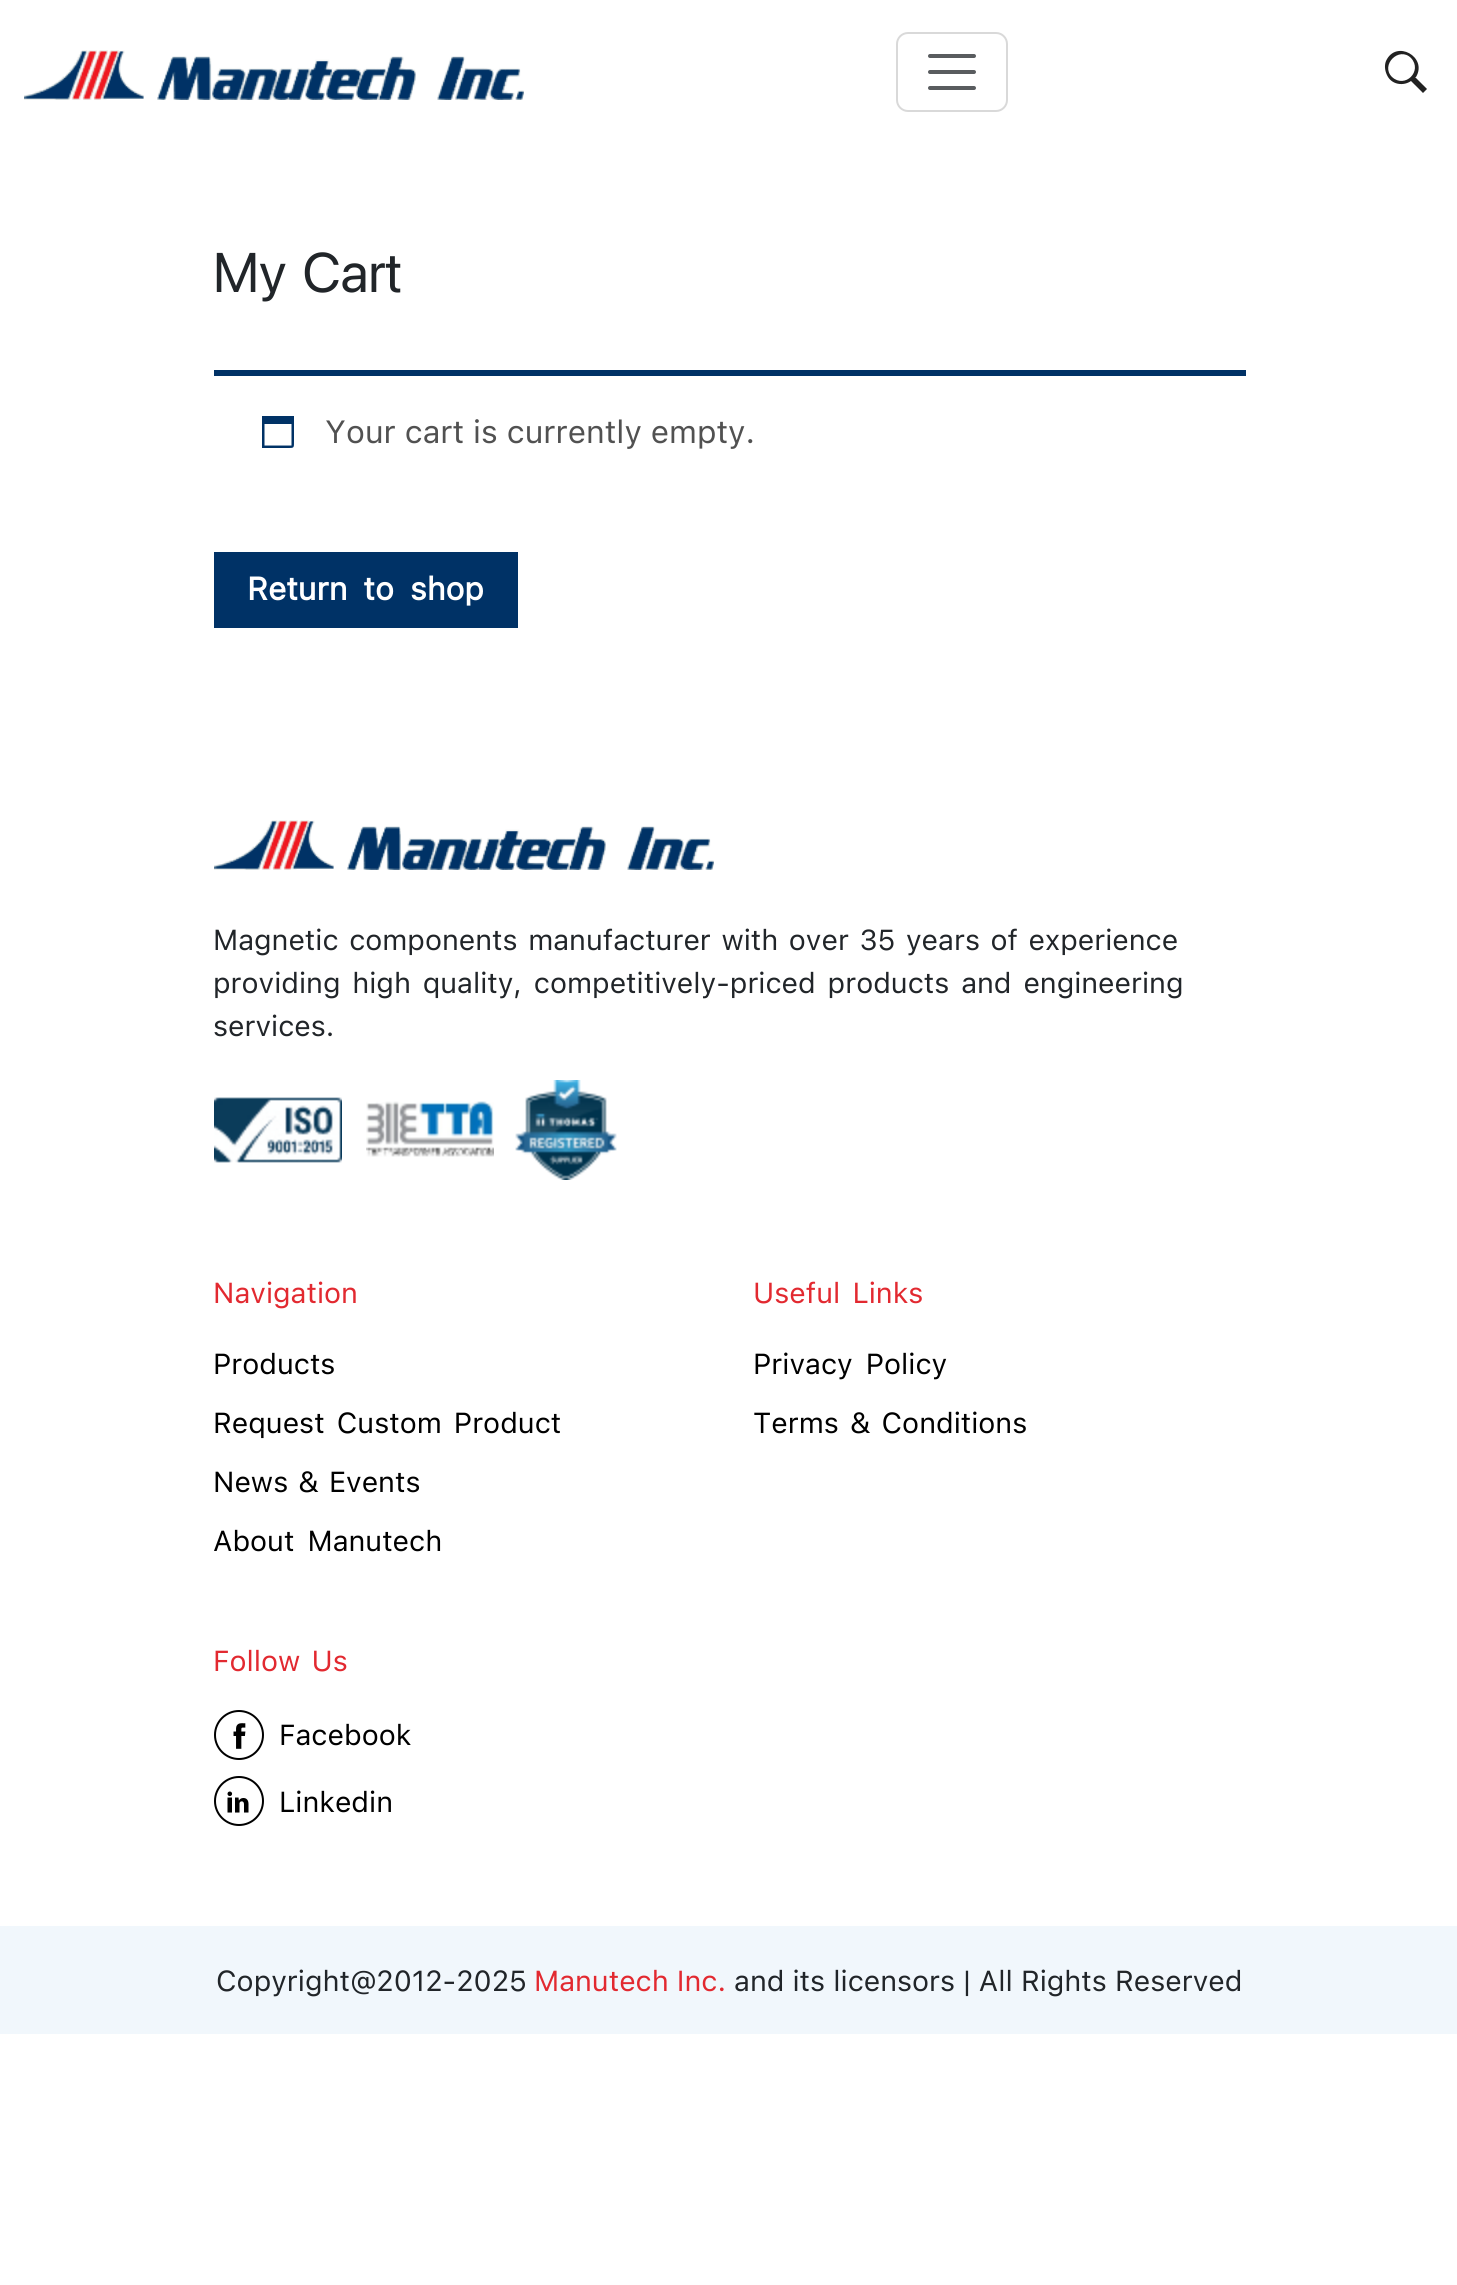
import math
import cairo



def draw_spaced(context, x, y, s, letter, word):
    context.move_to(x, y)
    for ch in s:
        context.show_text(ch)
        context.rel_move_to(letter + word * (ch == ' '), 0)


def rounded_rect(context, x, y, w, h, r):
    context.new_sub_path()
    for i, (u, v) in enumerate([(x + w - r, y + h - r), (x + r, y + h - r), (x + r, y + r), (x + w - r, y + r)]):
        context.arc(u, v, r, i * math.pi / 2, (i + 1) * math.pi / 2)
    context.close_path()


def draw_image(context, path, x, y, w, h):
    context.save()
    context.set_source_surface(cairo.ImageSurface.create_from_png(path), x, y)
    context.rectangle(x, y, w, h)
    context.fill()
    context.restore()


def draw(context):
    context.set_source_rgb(1, 1, 1)
    context.paint()
    draw_image(context, "images/1.png", 24, 50, 500, 50)
    rounded_rect(context, 897, 33, 110, 78, 11)
    context.set_source_rgb(217 / 255, 217 / 255, 217 / 255)
    context.stroke()
    context.new_path()
    context.move_to(930, 56)
    context.line_to(974, 56)
    context.move_to(930, 72)
    context.line_to(974, 72)
    context.move_to(930, 88)
    context.line_to(974, 88)
    context.set_source_rgb(89 / 255, 92 / 255, 95 / 255)
    context.set_line_width(4)
    context.set_line_cap(cairo.LineCap.ROUND)
    context.stroke()
    context.set_source_rgb(34 / 255, 34 / 255, 34 / 255)
    context.new_path()
    context.move_to(1416, 77)
    context.curve_to(1428, 57, 1396, 39, 1386, 61)
    context.curve_to(1384, 66, 1385, 72, 1388, 77)
    context.curve_to(1393, 85, 1404, 86, 1411, 81)
    context.line_to(1423, 93)
    context.line_to(1427, 89)
    context.line_to(1415, 77)
    context.close_path()
    context.move_to(1411, 58)
    context.curve_to(1423, 71, 1405, 89, 1392, 77)
    context.curve_to(1380, 65, 1399, 46, 1411, 58)
    context.close_path()
    context.fill()
    context.set_source_rgb(0, 50 / 255, 102 / 255)
    context.rectangle(214, 370, 1032, 6)
    context.fill()
    context.new_path()
    context.move_to(291.5, 424)
    context.line_to(264.5, 424)
    context.line_to(264.5, 445.5)
    context.line_to(291.5, 445.5)
    context.close_path()
    context.move_to(294, 416)
    context.line_to(294, 440.5)
    context.curve_to(294, 448.5, 294.5, 448, 286.5, 448)
    context.line_to(262, 448)
    context.line_to(262, 416)
    context.close_path()
    context.fill()
    context.rectangle(214, 552, 304, 76)
    context.fill()
    draw_image(context, "images/2.png", 214, 820, 500, 50)
    draw_image(context, "images/3.png", 214, 1097, 128, 66)
    draw_image(context, "images/4.png", 366, 1101, 128, 56)
    draw_image(context, "images/5.png", 515, 1080, 102, 100)
    context.arc(239, 1735, 24, 0, 2 * math.pi)
    context.set_source_rgb(0, 0, 0)
    context.set_line_width(2)
    context.set_line_cap(cairo.LineCap.BUTT)
    context.stroke()
    draw_image(context, "images/6.png", 233, 1723, 13, 26)
    context.arc(239, 1801, 24, 0, 2 * math.pi)
    context.stroke()
    draw_image(context, "images/7.png", 227, 1791, 22, 22)
    context.set_source_rgb(241 / 255, 247 / 255, 252 / 255)
    context.rectangle(0, 1926, 1457, 108)
    context.fill()
    context.select_font_face("SF")
    context.set_font_size(55.5)
    context.set_source_rgb(33 / 255, 37 / 255, 41 / 255)
    draw_spaced(context, 213, 292, "My Cart", 0, 5)
    context.select_font_face("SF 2")
    context.set_font_size(32)
    context.set_source_rgb(81 / 255, 81 / 255, 81 / 255)
    context.move_to(325, 443)
    context.show_text("Your cart is currently empty.")
    context.select_font_face("SF", cairo.FontSlant.NORMAL, cairo.FontWeight.BOLD)
    context.set_source_rgb(1, 1, 1)
    draw_spaced(context, 247, 600, "Return to shop", 0, 7)
    context.select_font_face("SF 2")
    context.set_font_size(28.8)
    context.set_source_rgb(33 / 255, 37 / 255, 41 / 255)
    draw_spaced(context, 213, 950, "Magnetic components manufacturer with over 35 years of experience", 0, 2.5)
    draw_spaced(context, 213, 993, "providing high quality, competitively-priced products and engineering", 0, 3.75)
    context.move_to(213, 1036)
    context.show_text("services.")
    context.set_source_rgb(226 / 255, 41 / 255, 48 / 255)
    context.move_to(213, 1303)
    context.show_text("Navigation")
    context.set_source_rgb(0, 0, 0)
    context.move_to(213, 1374)
    context.show_text("Products")
    draw_spaced(context, 213, 1433, "Request Custom Product", 0, 4)
    draw_spaced(context, 213, 1492, "News & Events", 0, 2)
    draw_spaced(context, 213, 1551, "About Manutech", 0, 5)
    context.set_source_rgb(226 / 255, 41 / 255, 48 / 255)
    draw_spaced(context, 753, 1303, "Useful Links", 0, 4)
    context.set_source_rgb(0, 0, 0)
    draw_spaced(context, 753, 1374, "Privacy Policy", 0, 5)
    draw_spaced(context, 753, 1433, "Terms & Conditions", 0, 3)
    context.set_source_rgb(226 / 255, 41 / 255, 48 / 255)
    draw_spaced(context, 213, 1671, "Follow Us", 0, 3)
    context.set_source_rgb(0, 0, 0)
    context.move_to(279, 1745)
    context.show_text("Facebook")
    context.move_to(279, 1812)
    context.show_text("Linkedin")
    context.set_source_rgb(33 / 255, 37 / 255, 41 / 255)
    context.move_to(216, 1991)
    context.show_text("Copyright@2012-2025")
    context.set_source_rgb(226 / 255, 41 / 255, 48 / 255)
    context.move_to(534, 1991)
    context.show_text("Manutech Inc.")
    context.set_source_rgb(33 / 255, 37 / 255, 41 / 255)
    context.move_to(734, 1991)
    context.show_text("and its licensors | All Rights Reserved")


surface = cairo.ImageSurface(cairo.Format.RGB24, 1457, 2285)
context = cairo.Context(surface)
options = cairo.FontOptions()
options.set_hint_metrics(cairo.HintMetrics.OFF)
options.set_hint_style(cairo.HintStyle.NONE)
context.set_font_options(options)
context.set_miter_limit(4)
draw(context)
surface.write_to_png("out.png")
